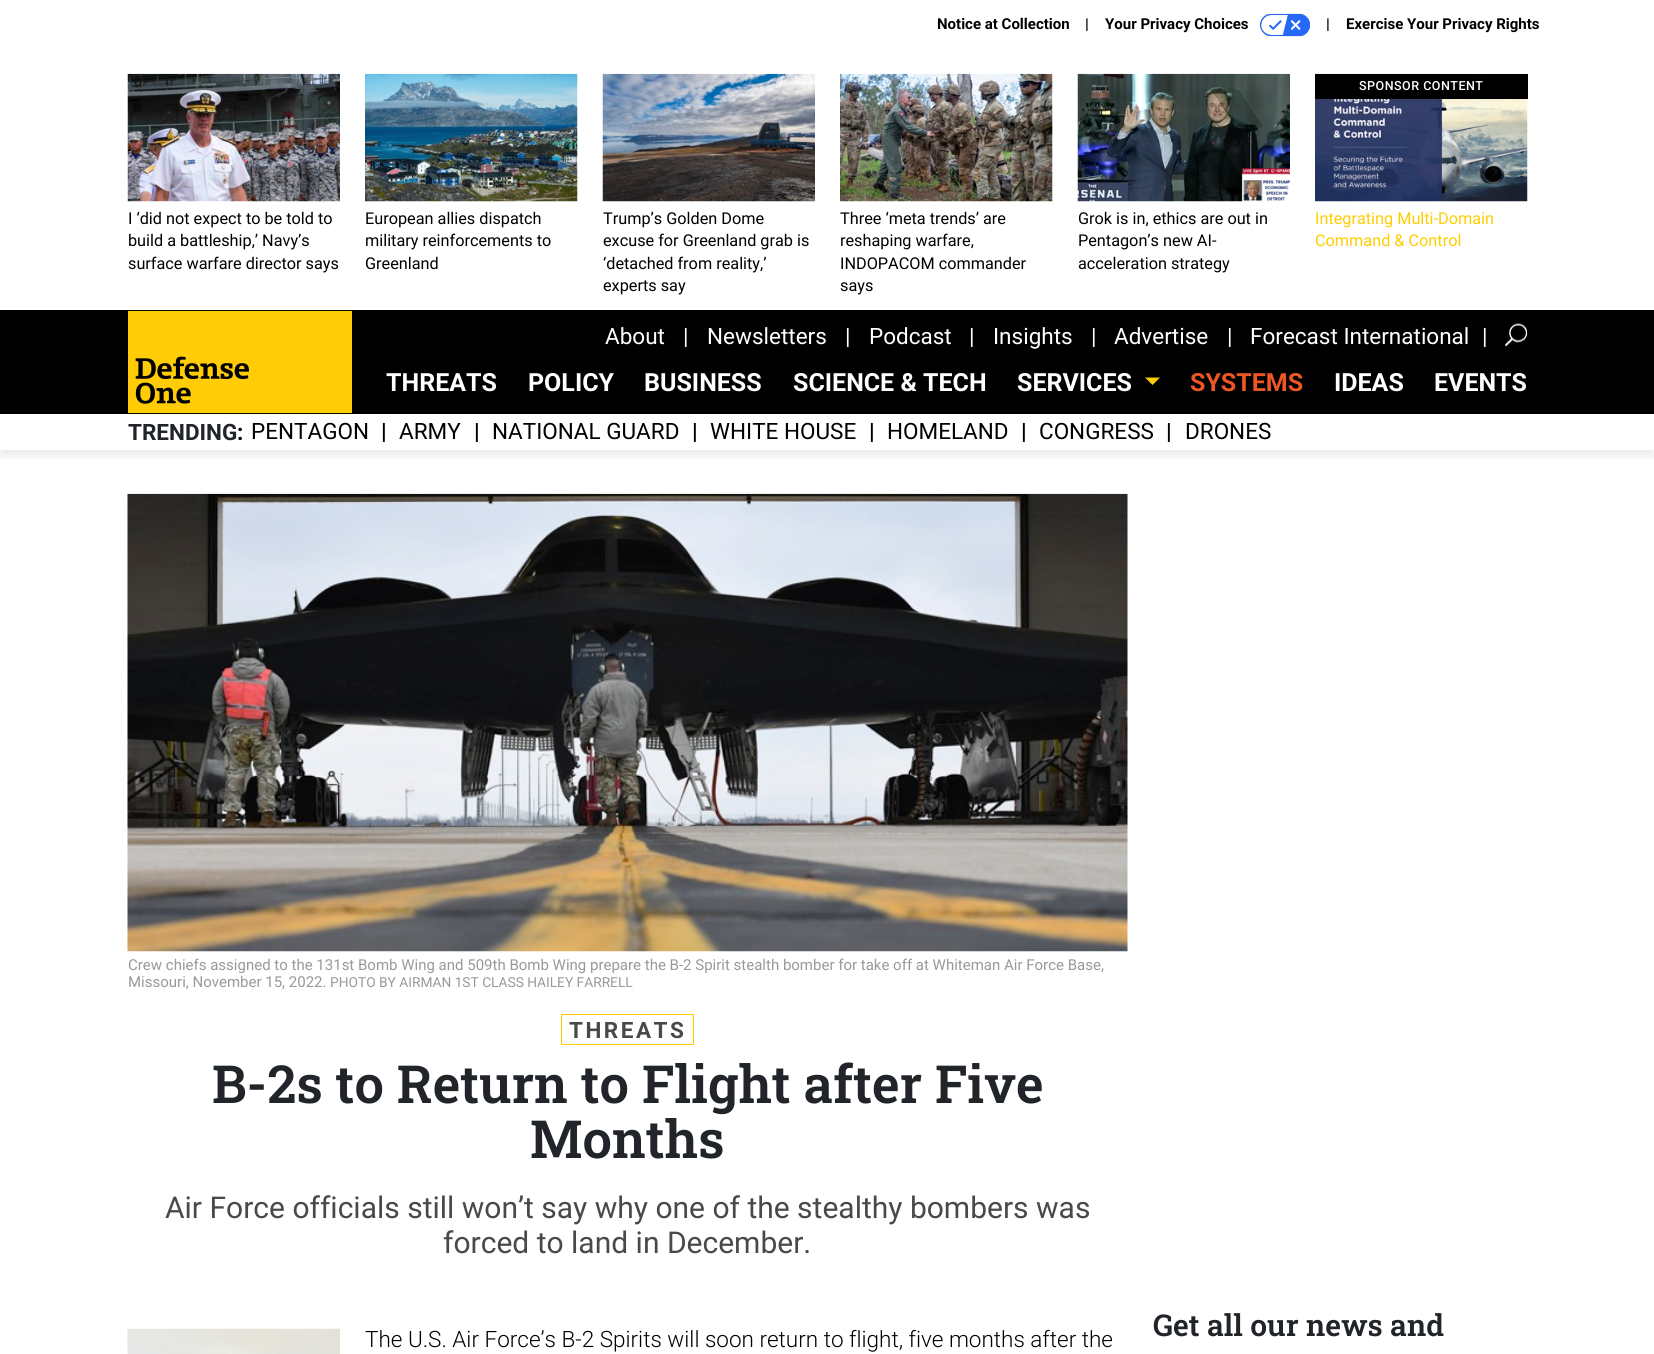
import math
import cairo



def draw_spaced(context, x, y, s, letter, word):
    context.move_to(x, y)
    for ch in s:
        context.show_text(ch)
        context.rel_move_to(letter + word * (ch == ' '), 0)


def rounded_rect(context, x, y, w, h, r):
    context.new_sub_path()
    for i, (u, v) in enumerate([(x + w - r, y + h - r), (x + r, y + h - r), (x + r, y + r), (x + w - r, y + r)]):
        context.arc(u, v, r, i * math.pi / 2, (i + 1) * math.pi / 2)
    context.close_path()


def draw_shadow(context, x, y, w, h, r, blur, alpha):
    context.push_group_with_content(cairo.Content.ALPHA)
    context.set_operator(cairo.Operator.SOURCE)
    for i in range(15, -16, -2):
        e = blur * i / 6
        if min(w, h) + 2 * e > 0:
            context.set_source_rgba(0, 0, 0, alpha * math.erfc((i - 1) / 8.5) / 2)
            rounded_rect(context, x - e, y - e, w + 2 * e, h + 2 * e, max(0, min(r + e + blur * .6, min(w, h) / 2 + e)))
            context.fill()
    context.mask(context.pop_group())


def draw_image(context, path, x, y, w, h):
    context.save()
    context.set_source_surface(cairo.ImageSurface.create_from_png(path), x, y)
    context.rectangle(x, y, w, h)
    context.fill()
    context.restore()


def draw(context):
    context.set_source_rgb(1, 1, 1)
    context.paint()
    draw_image(context, "images/1.png", 1260, 13, 50, 24)
    draw_image(context, "images/2.png", 127, 73, 213, 129)
    draw_image(context, "images/3.png", 365, 73, 213, 129)
    draw_image(context, "images/4.png", 602, 73, 213, 129)
    draw_image(context, "images/5.png", 840, 73, 213, 129)
    draw_image(context, "images/6.png", 1077, 73, 213, 129)
    draw_image(context, "images/7.png", 1315, 73, 213, 129)
    context.set_source_rgb(0, 0, 0)
    context.rectangle(1315, 74, 213, 25)
    context.fill()
    context.save()
    context.rectangle(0, 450, 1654, 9)
    context.clip()
    context.set_source_rgb(0, 0, 0)
    draw_shadow(context, 0, 420, 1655, 36, 0, 4.5, 0.08)
    context.restore()
    context.rectangle(0, 310, 1654, 104)
    context.fill()
    draw_image(context, "images/8.png", 128, 311, 224, 102)
    draw_image(context, "images/9.png", 1505, 323, 23, 24)
    context.set_source_rgb(1, 205 / 255, 0)
    context.new_path()
    context.move_to(1145, 377.5)
    context.line_to(1160, 377.5)
    context.line_to(1152.5, 385)
    context.close_path()
    context.fill()
    draw_image(context, "images/10.png", 127, 493, 1001, 459)
    context.rectangle(561.5, 1014.5, 132, 30)
    context.set_line_width(1)
    context.stroke()
    draw_image(context, "images/11.png", 127, 1328, 213, 26)
    context.select_font_face("Roboto", cairo.FontSlant.NORMAL, cairo.FontWeight.BOLD)
    context.set_font_size(15)
    context.set_source_rgb(0, 0, 0)
    context.move_to(937, 29)
    context.show_text("Notice at Collection")
    context.move_to(1085, 29)
    context.show_text("|")
    context.move_to(1105, 29)
    context.show_text("Your Privacy Choices")
    context.move_to(1326, 29)
    context.show_text("|")
    context.move_to(1346, 29)
    context.show_text("Exercise Your Privacy Rights")
    context.select_font_face("Roboto")
    context.set_font_size(16.25)
    context.move_to(128, 224)
    context.show_text("I ‘did not expect to be told to")
    context.move_to(128, 246)
    context.show_text("build a battleship,’ Navy’s")
    context.move_to(128, 269)
    context.show_text("surface warfare director says")
    context.move_to(365, 224)
    context.show_text("European allies dispatch")
    context.move_to(365, 246)
    context.show_text("military reinforcements to")
    context.move_to(365, 269)
    context.show_text("Greenland")
    context.move_to(603, 224)
    context.show_text("Trump’s Golden Dome")
    context.move_to(603, 246)
    context.show_text("excuse for Greenland grab is")
    context.move_to(603, 269)
    context.show_text("‘detached from reality,’")
    context.move_to(603, 291)
    context.show_text("experts say")
    context.move_to(840, 224)
    context.show_text("Three ‘meta trends’ are")
    context.move_to(840, 246)
    context.show_text("reshaping warfare,")
    context.move_to(840, 269)
    context.show_text("INDOPACOM commander")
    context.move_to(840, 291)
    context.show_text("says")
    context.move_to(1078, 224)
    context.show_text("Grok is in, ethics are out in")
    context.move_to(1078, 246)
    context.show_text("Pentagon’s new AI-")
    context.move_to(1078, 269)
    context.show_text("acceleration strategy")
    context.select_font_face("Roboto Medium")
    context.set_font_size(12.5)
    context.set_source_rgb(1, 1, 1)
    draw_spaced(context, 1359, 90, "SPONSOR CONTENT", 0.5, 0)
    context.select_font_face("Roboto")
    context.set_font_size(16.25)
    context.set_source_rgb(1, 205 / 255, 0)
    context.move_to(1315, 224)
    context.show_text("Integrating Multi-Domain")
    context.move_to(1315, 246)
    context.show_text("Command & Control")
    context.set_font_size(22.5)
    context.set_source_rgb(1, 1, 1)
    context.move_to(605, 344)
    context.show_text("About")
    context.move_to(683, 344)
    context.show_text("|")
    context.move_to(707, 344)
    context.show_text("Newsletters")
    context.move_to(845, 344)
    context.show_text("|")
    context.move_to(869, 344)
    context.show_text("Podcast")
    context.move_to(969, 344)
    context.show_text("|")
    context.move_to(993, 344)
    context.show_text("Insights")
    context.move_to(1091, 344)
    context.show_text("|")
    context.move_to(1114, 344)
    context.show_text("Advertise")
    context.move_to(1227, 344)
    context.show_text("|")
    context.move_to(1250, 344)
    context.show_text("Forecast International")
    context.move_to(1482, 344)
    context.show_text("|")
    context.select_font_face("Roboto", cairo.FontSlant.NORMAL, cairo.FontWeight.BOLD)
    context.set_font_size(25)
    context.move_to(386, 391)
    context.show_text("THREATS")
    context.move_to(528, 391)
    context.show_text("POLICY")
    context.move_to(644, 391)
    context.show_text("BUSINESS")
    context.move_to(793, 391)
    context.show_text("SCIENCE & TECH")
    context.move_to(1017, 391)
    context.show_text("SERVICES")
    context.set_source_rgb(238 / 255, 86 / 255, 36 / 255)
    context.move_to(1190, 391)
    context.show_text("SYSTEMS")
    context.set_source_rgb(1, 1, 1)
    context.move_to(1334, 391)
    context.show_text("IDEAS")
    context.move_to(1434, 391)
    context.show_text("EVENTS")
    context.set_font_size(22.5)
    context.set_source_rgb(33 / 255, 37 / 255, 41 / 255)
    context.move_to(128, 440)
    context.show_text("TRENDING")
    context.set_source_rgb(0, 0, 0)
    context.move_to(237, 440)
    context.show_text(":")
    context.select_font_face("Roboto")
    context.move_to(251, 439)
    context.show_text("PENTAGON")
    context.select_font_face("Roboto", cairo.FontSlant.NORMAL, cairo.FontWeight.BOLD)
    context.move_to(381, 439)
    context.show_text("|")
    context.select_font_face("Roboto")
    context.move_to(399, 439)
    context.show_text("ARMY")
    context.select_font_face("Roboto", cairo.FontSlant.NORMAL, cairo.FontWeight.BOLD)
    context.move_to(474, 439)
    context.show_text("|")
    context.select_font_face("Roboto")
    context.move_to(492, 439)
    context.show_text("NATIONAL GUARD")
    context.select_font_face("Roboto", cairo.FontSlant.NORMAL, cairo.FontWeight.BOLD)
    context.move_to(692, 439)
    context.show_text("|")
    context.select_font_face("Roboto")
    context.move_to(710, 439)
    context.show_text("WHITE HOUSE")
    context.select_font_face("Roboto", cairo.FontSlant.NORMAL, cairo.FontWeight.BOLD)
    context.move_to(869, 439)
    context.show_text("|")
    context.select_font_face("Roboto")
    context.move_to(887, 439)
    context.show_text("HOMELAND")
    context.select_font_face("Roboto", cairo.FontSlant.NORMAL, cairo.FontWeight.BOLD)
    context.move_to(1021, 439)
    context.show_text("|")
    context.select_font_face("Roboto")
    context.move_to(1039, 439)
    context.show_text("CONGRESS")
    context.select_font_face("Roboto", cairo.FontSlant.NORMAL, cairo.FontWeight.BOLD)
    context.move_to(1166, 439)
    context.show_text("|")
    context.select_font_face("Roboto")
    context.move_to(1185, 439)
    context.show_text("DRONES")
    context.set_font_size(15)
    context.set_source_rgb(153 / 255, 153 / 255, 153 / 255)
    context.move_to(128, 970)
    context.show_text("Crew chiefs assigned to the 131st Bomb Wing and 509th Bomb Wing prepare the B-2 Spirit stealth bomber for take off at Whiteman Air Force Base,")
    context.move_to(128, 987)
    context.show_text("Missouri, November 15, 2022.")
    context.set_font_size(13.75)
    context.move_to(330, 987)
    context.show_text("PHOTO BY AIRMAN 1ST CLASS HAILEY FARRELL")
    context.select_font_face("Roboto Slab SemiBold")
    context.set_font_size(30)
    context.set_source_rgb(33 / 255, 37 / 255, 41 / 255)
    context.move_to(1153, 1336)
    context.show_text("Get all our news and")
    context.select_font_face("Roboto", cairo.FontSlant.NORMAL, cairo.FontWeight.BOLD)
    context.set_font_size(22.5)
    context.set_source_rgb(73 / 255, 73 / 255, 73 / 255)
    draw_spaced(context, 569, 1038, "THREATS", 2.5, 0)
    context.select_font_face("Roboto Slab SemiBold")
    context.set_font_size(52.5)
    context.set_source_rgb(33 / 255, 37 / 255, 41 / 255)
    context.move_to(212, 1103)
    context.show_text("B-2s to Return to Flight after Five")
    context.move_to(530, 1158)
    context.show_text("Months")
    context.select_font_face("Roboto")
    context.set_font_size(30)
    context.set_source_rgb(73 / 255, 73 / 255, 73 / 255)
    context.move_to(165, 1218)
    context.show_text("Air Force officials still won’t say why one of the stealthy bombers was")
    context.move_to(443, 1253)
    context.show_text("forced to land in December.")
    context.select_font_face("Roboto Light")
    context.set_font_size(22.5)
    context.set_source_rgb(0, 0, 0)
    context.move_to(365, 1347)
    context.show_text("The U.S. Air Force’s B-2 Spirits will soon return to flight, five months after the")


surface = cairo.ImageSurface(cairo.Format.RGB24, 1654, 1354)
context = cairo.Context(surface)
options = cairo.FontOptions()
options.set_hint_metrics(cairo.HintMetrics.OFF)
options.set_hint_style(cairo.HintStyle.NONE)
context.set_font_options(options)
context.set_miter_limit(4)
draw(context)
surface.write_to_png("out.png")
